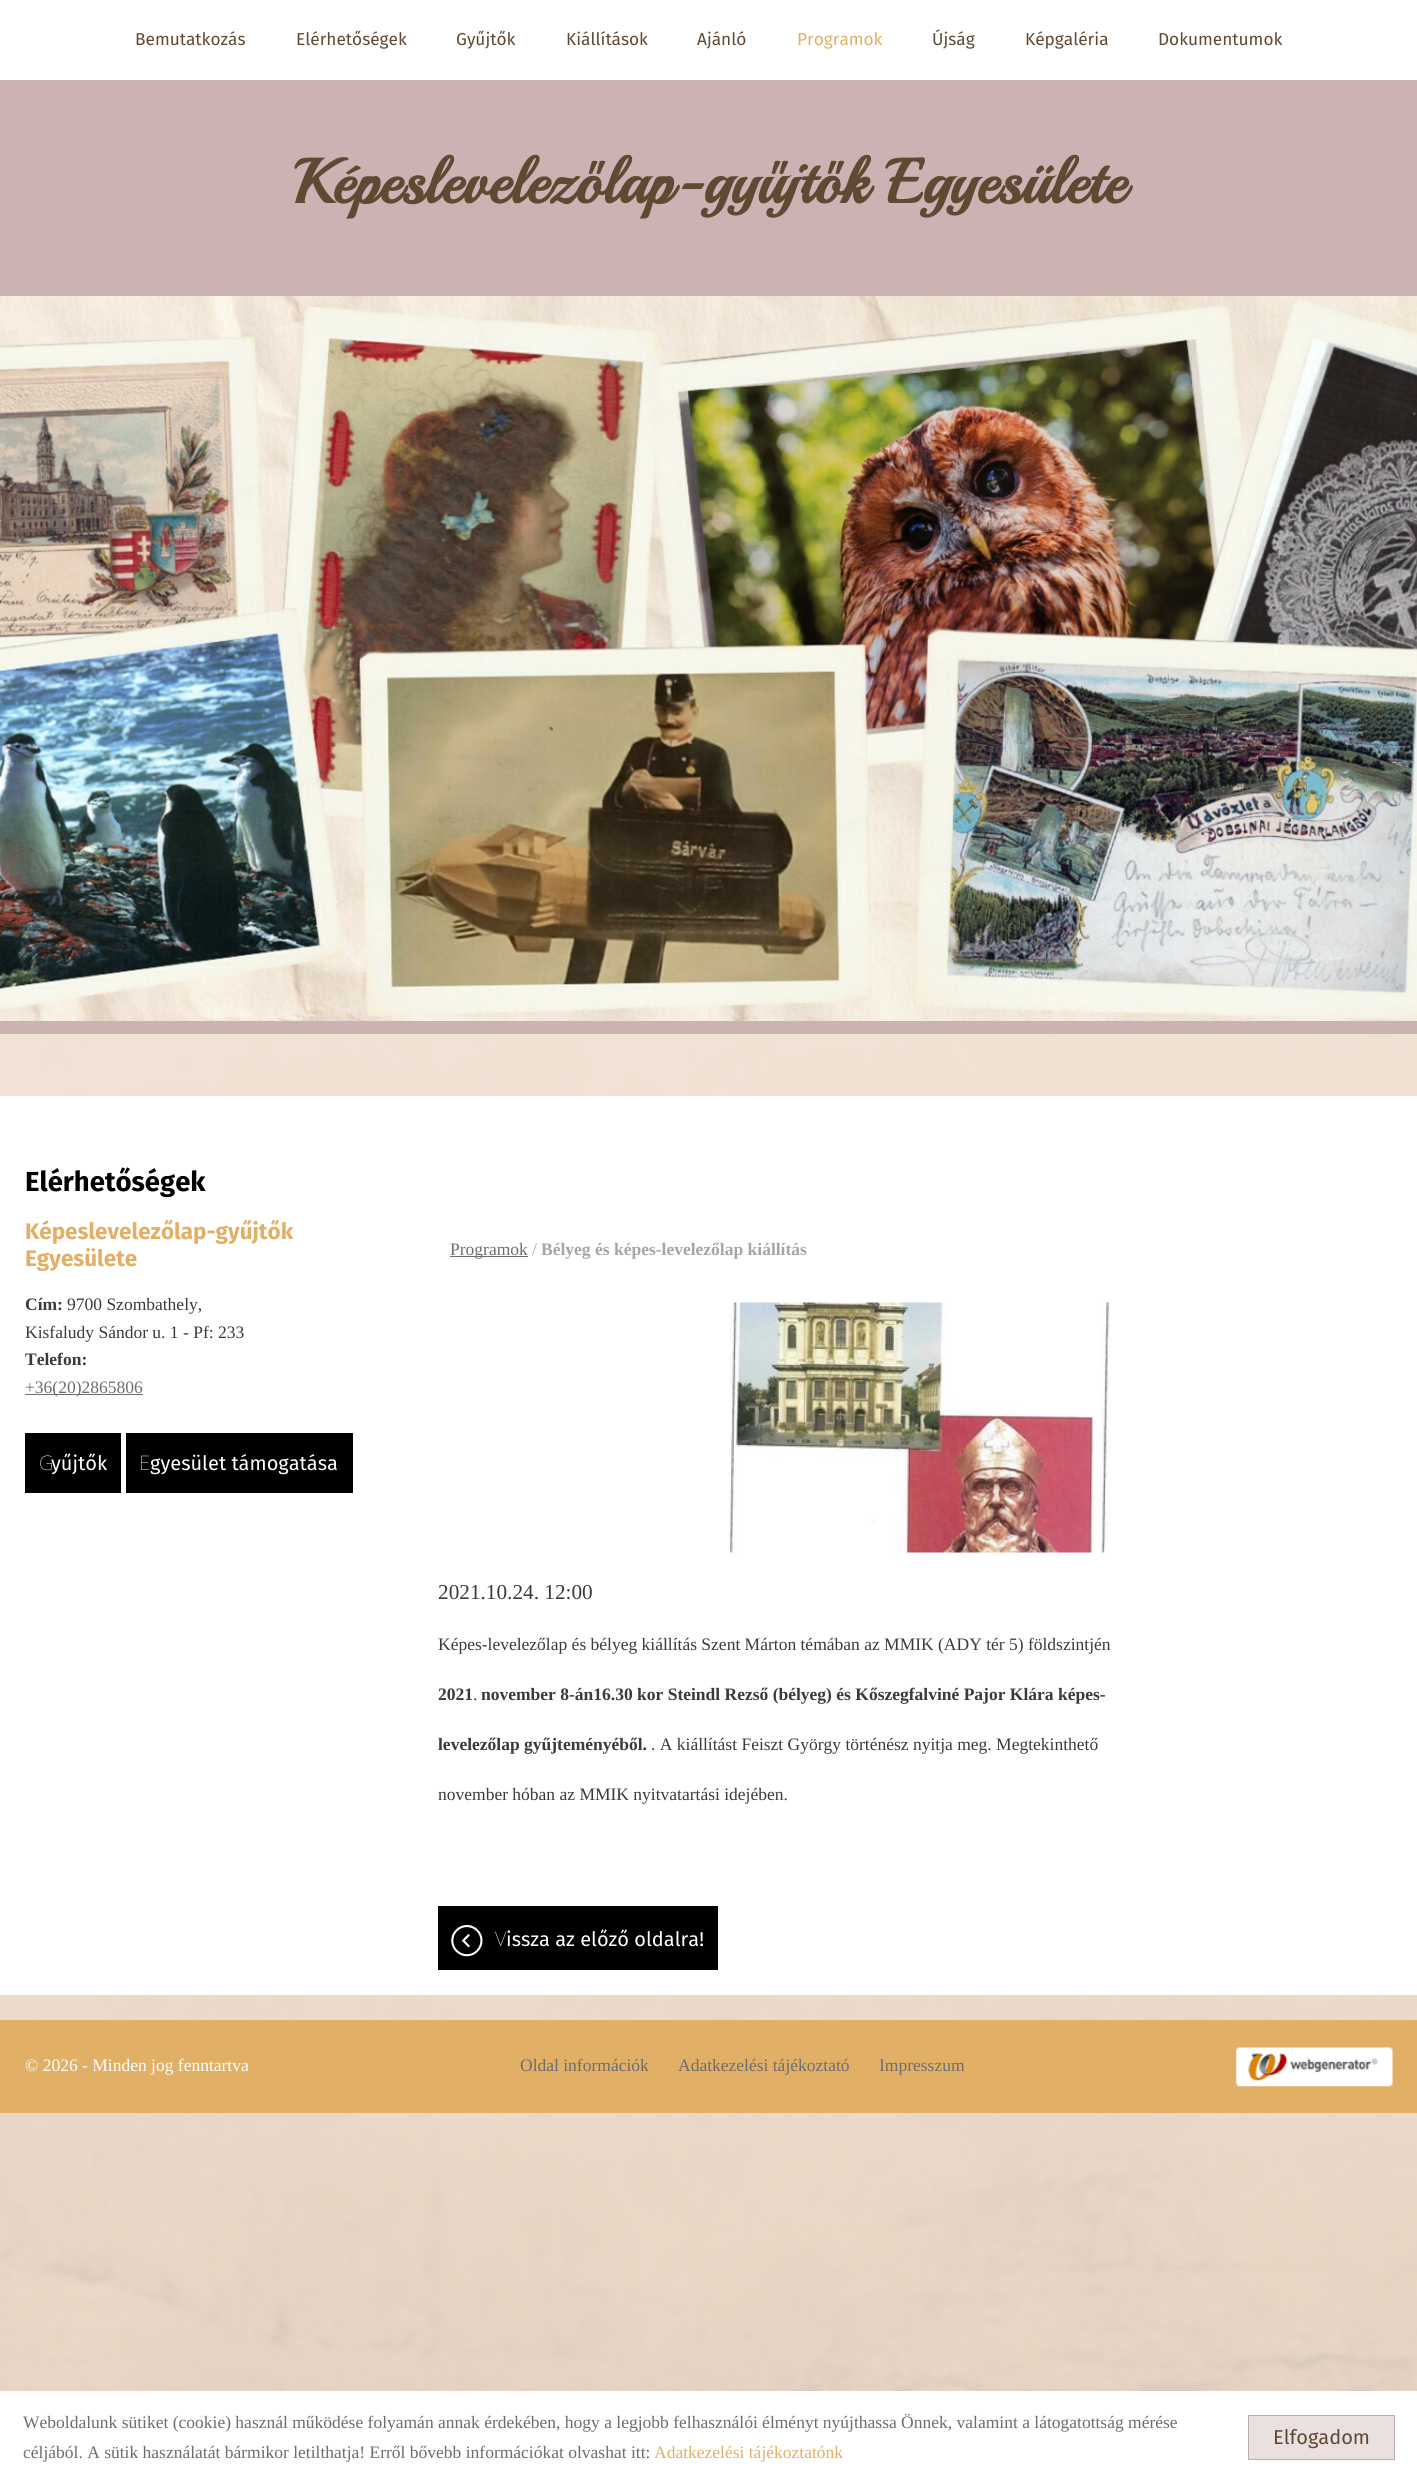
import math
import cairo



def draw_image(context, path, x, y, w, h):
    context.save()
    context.set_source_surface(cairo.ImageSurface.create_from_png(path), x, y)
    context.rectangle(x, y, w, h)
    context.fill()
    context.restore()


def draw(context):
    context.set_source_rgb(1, 1, 1)
    context.paint()
    context.set_source_rgb(204 / 255, 179 / 255, 179 / 255)
    context.rectangle(0, 80, 1417, 216)
    context.fill()
    draw_image(context, "images/1.png", 0, 296, 1417, 725)
    context.rectangle(0, 1021, 1417, 13)
    context.fill()
    draw_image(context, "images/5.png", 0, 1034, 1417, 1357)
    context.set_source_rgb(1, 1, 1)
    context.rectangle(0, 1096, 1417, 899)
    context.fill()
    context.set_source_rgb(109 / 255, 109 / 255, 109 / 255)
    context.rectangle(25, 1394, 118, 1)
    context.fill()
    context.set_source_rgb(0, 0, 0)
    context.rectangle(25, 1433, 96, 60)
    context.fill()
    context.rectangle(126, 1433, 227, 60)
    context.fill()
    context.set_source_rgb(109 / 255, 109 / 255, 109 / 255)
    context.rectangle(450, 1256, 78, 1)
    context.fill()
    draw_image(context, "images/2.png", 729, 1302, 381, 251)
    context.set_source_rgb(0, 0, 0)
    context.rectangle(438, 1906, 280, 64)
    context.fill()
    draw_image(context, "images/3.png", 451, 1925, 32, 32)
    context.set_source_rgb(226 / 255, 175 / 255, 102 / 255)
    context.rectangle(0, 2020, 1417, 93)
    context.fill()
    draw_image(context, "images/4.png", 1236, 2047, 157, 40)
    context.set_source_rgb(234 / 255, 224 / 255, 224 / 255)
    context.rectangle(1248.5, 2415.5, 146, 44)
    context.fill_preserve()
    context.set_source_rgb(184 / 255, 172 / 255, 172 / 255)
    context.set_line_width(1)
    context.stroke()
    context.select_font_face("Fira Sans")
    context.set_font_size(17.25)
    context.set_source_rgb(96 / 255, 72 / 255, 50 / 255)
    context.move_to(135, 45)
    context.show_text("Bemutatkozás")
    context.move_to(296, 45)
    context.show_text("Elérhetőségek")
    context.move_to(456, 45)
    context.show_text("Gyűjtők")
    context.move_to(566, 45)
    context.show_text("Kiállítások")
    context.move_to(697, 45)
    context.show_text("Ajánló")
    context.set_source_rgb(226 / 255, 175 / 255, 102 / 255)
    context.move_to(797, 45)
    context.show_text("Programok")
    context.set_source_rgb(96 / 255, 72 / 255, 50 / 255)
    context.move_to(932, 45)
    context.show_text("Újság")
    context.move_to(1025, 45)
    context.show_text("Képgaléria")
    context.move_to(1158, 45)
    context.show_text("Dokumentumok")
    context.select_font_face("Playball", cairo.FontSlant.NORMAL, cairo.FontWeight.BOLD)
    context.set_font_size(62.5)
    context.move_to(292, 203)
    context.show_text("Képeslevelezőlap-gyűjtők Egyesülete")
    context.select_font_face("Fira Sans", cairo.FontSlant.NORMAL, cairo.FontWeight.BOLD)
    context.set_font_size(27.5)
    context.set_source_rgb(0, 0, 0)
    context.move_to(25, 1191)
    context.show_text("Elérhetőségek")
    context.set_font_size(22.5)
    context.set_source_rgb(226 / 255, 175 / 255, 102 / 255)
    context.move_to(25, 1239)
    context.show_text("Képeslevelezőlap-gyűjtők")
    context.move_to(25, 1266)
    context.show_text("Egyesülete")
    context.select_font_face("Liberation Serif", cairo.FontSlant.NORMAL, cairo.FontWeight.BOLD)
    context.set_font_size(17.5)
    context.set_source_rgb(58 / 255, 58 / 255, 58 / 255)
    context.move_to(25, 1310)
    context.show_text("Cím:")
    context.select_font_face("Liberation Serif")
    context.move_to(67, 1310)
    context.show_text("9700 Szombathely,")
    context.move_to(25, 1338)
    context.show_text("Kisfaludy Sándor u. 1 - Pf: 233")
    context.select_font_face("Liberation Serif", cairo.FontSlant.NORMAL, cairo.FontWeight.BOLD)
    context.move_to(25, 1365)
    context.show_text("Telefon:")
    context.select_font_face("Liberation Serif")
    context.set_source_rgb(109 / 255, 109 / 255, 109 / 255)
    context.move_to(25, 1393)
    context.show_text("+36(20)2865806")
    context.select_font_face("Noto Sans Thin")
    context.set_font_size(20)
    context.set_source_rgb(1, 1, 1)
    context.move_to(39, 1470)
    context.show_text("G")
    context.select_font_face("Fira Sans")
    context.move_to(51, 1470)
    context.show_text("yűjtők")
    context.select_font_face("Noto Sans Thin")
    context.move_to(139, 1470)
    context.show_text("E")
    context.select_font_face("Fira Sans")
    context.move_to(150, 1470)
    context.show_text("gyesület támogatása")
    context.select_font_face("Liberation Serif")
    context.set_font_size(17.5)
    context.set_source_rgb(109 / 255, 109 / 255, 109 / 255)
    context.move_to(450, 1255)
    context.show_text("Programok")
    context.set_source_rgb(165 / 255, 165 / 255, 165 / 255)
    context.move_to(532, 1255)
    context.show_text("/")
    context.select_font_face("Liberation Serif", cairo.FontSlant.NORMAL, cairo.FontWeight.BOLD)
    context.move_to(541, 1255)
    context.show_text("Bélyeg és képes-levelezőlap kiállítás")
    context.select_font_face("Liberation Serif")
    context.set_font_size(21.25)
    context.set_source_rgb(58 / 255, 58 / 255, 58 / 255)
    context.move_to(438, 1599)
    context.show_text("2021.10.24. 12:00")
    context.set_font_size(17.5)
    context.move_to(438, 1650)
    context.show_text("Képes-levelezőlap és bélyeg kiállítás Szent Márton témában az MMIK (ADY tér 5) földszintjén")
    context.select_font_face("Liberation Serif", cairo.FontSlant.NORMAL, cairo.FontWeight.BOLD)
    context.move_to(438, 1700)
    context.show_text("2021")
    context.select_font_face("Liberation Serif")
    context.move_to(473, 1700)
    context.show_text(".")
    context.select_font_face("Liberation Serif", cairo.FontSlant.NORMAL, cairo.FontWeight.BOLD)
    context.move_to(481, 1700)
    context.show_text("november 8-án16.30 kor Steindl Rezső (bélyeg) és Kőszegfalviné Pajor Klára képes-")
    context.move_to(438, 1750)
    context.show_text("levelezőlap gyűjteményéből.")
    context.select_font_face("Liberation Serif")
    context.move_to(651, 1750)
    context.show_text(". A kiállítást Feiszt György történész nyitja meg. Megtekinthető")
    context.move_to(438, 1800)
    context.show_text("november hóban az MMIK nyitvatartási idejében.")
    context.select_font_face("Noto Sans Thin")
    context.set_font_size(20)
    context.set_source_rgb(1, 1, 1)
    context.move_to(495, 1946)
    context.show_text("V")
    context.select_font_face("Fira Sans")
    context.move_to(506, 1946)
    context.show_text("issza az előző oldalra!")
    context.select_font_face("Liberation Serif")
    context.set_font_size(17.5)
    context.move_to(25, 2071)
    context.show_text("© 2026 - Minden jog fenntartva")
    context.set_source_rgb(109 / 255, 109 / 255, 109 / 255)
    context.move_to(520, 2071)
    context.show_text("Oldal információk")
    context.move_to(678, 2071)
    context.show_text("Adatkezelési tájékoztató")
    context.move_to(879, 2071)
    context.show_text("Impresszum")
    context.move_to(23, 2428)
    context.show_text("Weboldalunk sütiket (cookie) használ működése folyamán annak érdekében, hogy a legjobb felhasználói élményt nyújthassa Önnek, valamint a látogatottság mérése")
    context.move_to(23, 2458)
    context.show_text("céljából. A sütik használatát bármikor letilthatja! Erről bővebb információkat olvashat itt:")
    context.set_source_rgb(226 / 255, 175 / 255, 102 / 255)
    context.move_to(654, 2458)
    context.show_text("Adatkezelési tájékoztatónk")
    context.select_font_face("Fira Sans")
    context.set_font_size(20)
    context.set_source_rgb(96 / 255, 72 / 255, 50 / 255)
    context.move_to(1273, 2444)
    context.show_text("Elfogadom")


surface = cairo.ImageSurface(cairo.Format.RGB24, 1417, 2483)
context = cairo.Context(surface)
options = cairo.FontOptions()
options.set_hint_metrics(cairo.HintMetrics.OFF)
options.set_hint_style(cairo.HintStyle.NONE)
context.set_font_options(options)
context.set_miter_limit(4)
draw(context)
surface.write_to_png("out.png")
